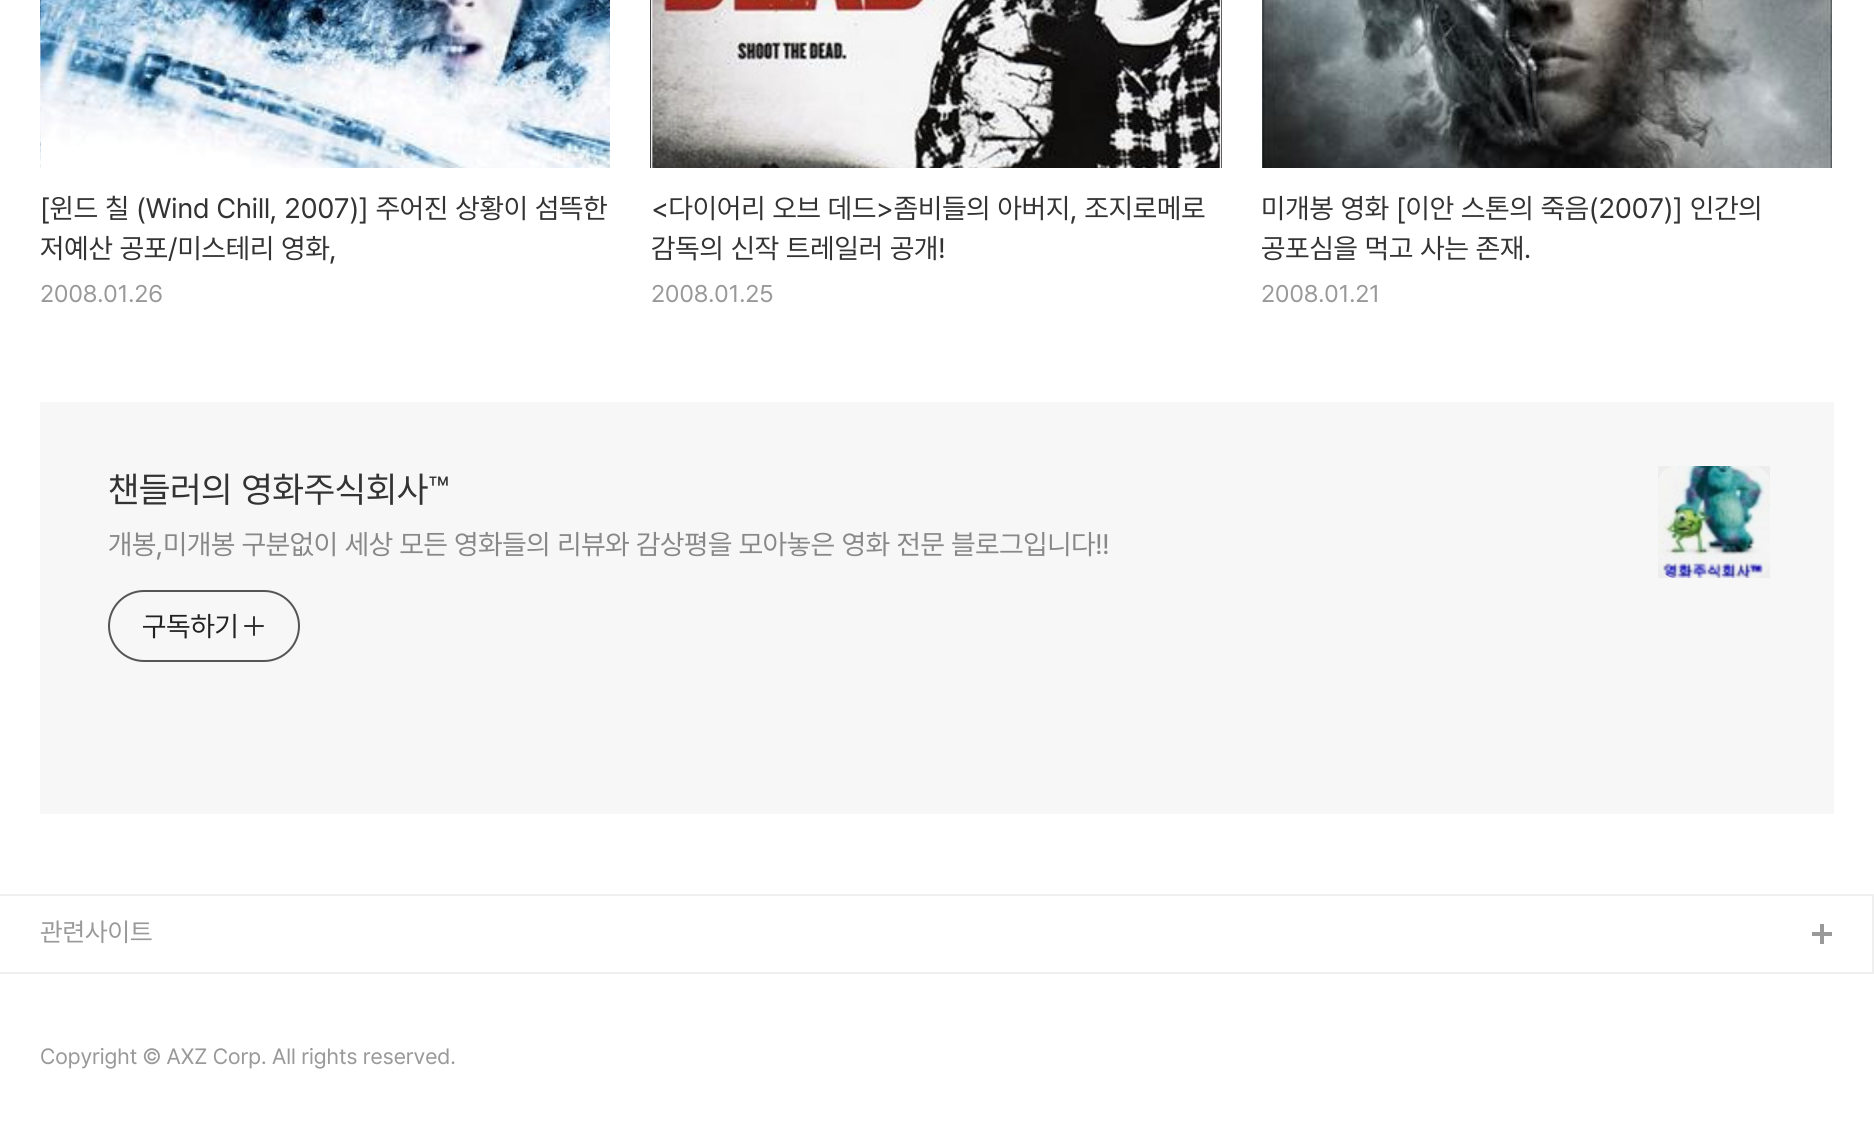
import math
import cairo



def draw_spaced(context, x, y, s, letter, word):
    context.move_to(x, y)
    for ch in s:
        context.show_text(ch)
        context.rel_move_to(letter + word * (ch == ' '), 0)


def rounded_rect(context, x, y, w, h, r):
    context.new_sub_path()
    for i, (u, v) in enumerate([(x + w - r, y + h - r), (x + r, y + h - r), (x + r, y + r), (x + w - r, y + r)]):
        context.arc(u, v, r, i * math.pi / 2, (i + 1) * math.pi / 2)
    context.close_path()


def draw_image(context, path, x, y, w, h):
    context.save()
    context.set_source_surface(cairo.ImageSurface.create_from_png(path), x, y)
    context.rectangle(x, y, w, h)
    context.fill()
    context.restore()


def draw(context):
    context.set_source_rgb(1, 1, 1)
    context.paint()
    draw_image(context, "images/1.png", 40, 0, 570, 168)
    draw_image(context, "images/2.png", 650, 0, 572, 168)
    draw_image(context, "images/3.png", 1262, 0, 570, 168)
    context.set_source_rgb(247 / 255, 247 / 255, 247 / 255)
    context.rectangle(40, 402, 1794, 412)
    context.fill()
    rounded_rect(context, 109, 591, 190, 70, 35)
    context.set_source_rgb(85 / 255, 85 / 255, 85 / 255)
    context.stroke()
    draw_image(context, "images/4.png", 244, 616, 20, 20)
    draw_image(context, "images/5.png", 1658, 466, 112, 112)
    context.set_source_rgba(0, 0, 0, 0.04)
    context.rectangle(1658, 466, 112, 112)
    context.fill()
    context.set_source_rgb(239 / 255, 239 / 255, 239 / 255)
    context.rectangle(0, 894, 1874, 2)
    context.fill()
    draw_image(context, "images/6.png", 1812, 924, 20, 20)
    context.rectangle(1872, 894, 2, 80)
    context.fill()
    context.rectangle(0, 972, 1874, 2)
    context.fill()
    context.select_font_face("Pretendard")
    context.set_font_size(28)
    context.set_source_rgb(51 / 255, 51 / 255, 51 / 255)
    context.move_to(40, 218)
    context.show_text("[윈드 칠 (Wind Chill, 2007)] 주어진 상황이 섬뜩한")
    context.move_to(40, 258)
    context.show_text("저예산 공포/미스테리 영화,")
    context.set_font_size(24)
    context.set_source_rgb(153 / 255, 153 / 255, 153 / 255)
    context.move_to(40, 302)
    context.show_text("2008.01.26")
    context.set_font_size(28)
    context.set_source_rgb(51 / 255, 51 / 255, 51 / 255)
    context.move_to(651, 218)
    context.show_text("<다이어리 오브 데드>좀비들의 아버지, 조지로메로")
    context.move_to(651, 258)
    context.show_text("감독의 신작 트레일러 공개!")
    context.set_font_size(24)
    context.set_source_rgb(153 / 255, 153 / 255, 153 / 255)
    context.move_to(651, 302)
    context.show_text("2008.01.25")
    context.set_font_size(28)
    context.set_source_rgb(51 / 255, 51 / 255, 51 / 255)
    context.move_to(1261, 218)
    context.show_text("미개봉 영화 [이안 스톤의 죽음(2007)] 인간의")
    context.move_to(1261, 258)
    context.show_text("공포심을 먹고 사는 존재.")
    context.set_font_size(24)
    context.set_source_rgb(153 / 255, 153 / 255, 153 / 255)
    context.move_to(1261, 302)
    context.show_text("2008.01.21")
    context.set_font_size(36)
    context.set_source_rgb(51 / 255, 51 / 255, 51 / 255)
    context.move_to(108, 502)
    context.show_text("챈들러의 영화주식회사™")
    context.set_font_size(28)
    context.set_source_rgb(136 / 255, 136 / 255, 136 / 255)
    draw_spaced(context, 108, 554, "개봉,미개봉 구분없이 세상 모든 영화들의 리뷰와 감상평을 모아놓은 영화 전문 블로그입니다!!", -0.2, 0)
    context.set_source_rgb(34 / 255, 34 / 255, 34 / 255)
    context.move_to(142, 636)
    context.show_text("구독하기")
    context.set_font_size(26)
    context.set_source_rgb(153 / 255, 153 / 255, 153 / 255)
    context.move_to(40, 941)
    context.show_text("관련사이트")
    context.set_font_size(22)
    context.move_to(40, 1064)
    context.show_text("Copyright © AXZ Corp. All rights reserved.")


surface = cairo.ImageSurface(cairo.Format.RGB24, 1874, 1146)
context = cairo.Context(surface)
options = cairo.FontOptions()
options.set_hint_metrics(cairo.HintMetrics.OFF)
options.set_hint_style(cairo.HintStyle.NONE)
context.set_font_options(options)
context.set_miter_limit(4)
draw(context)
surface.write_to_png("out.png")
